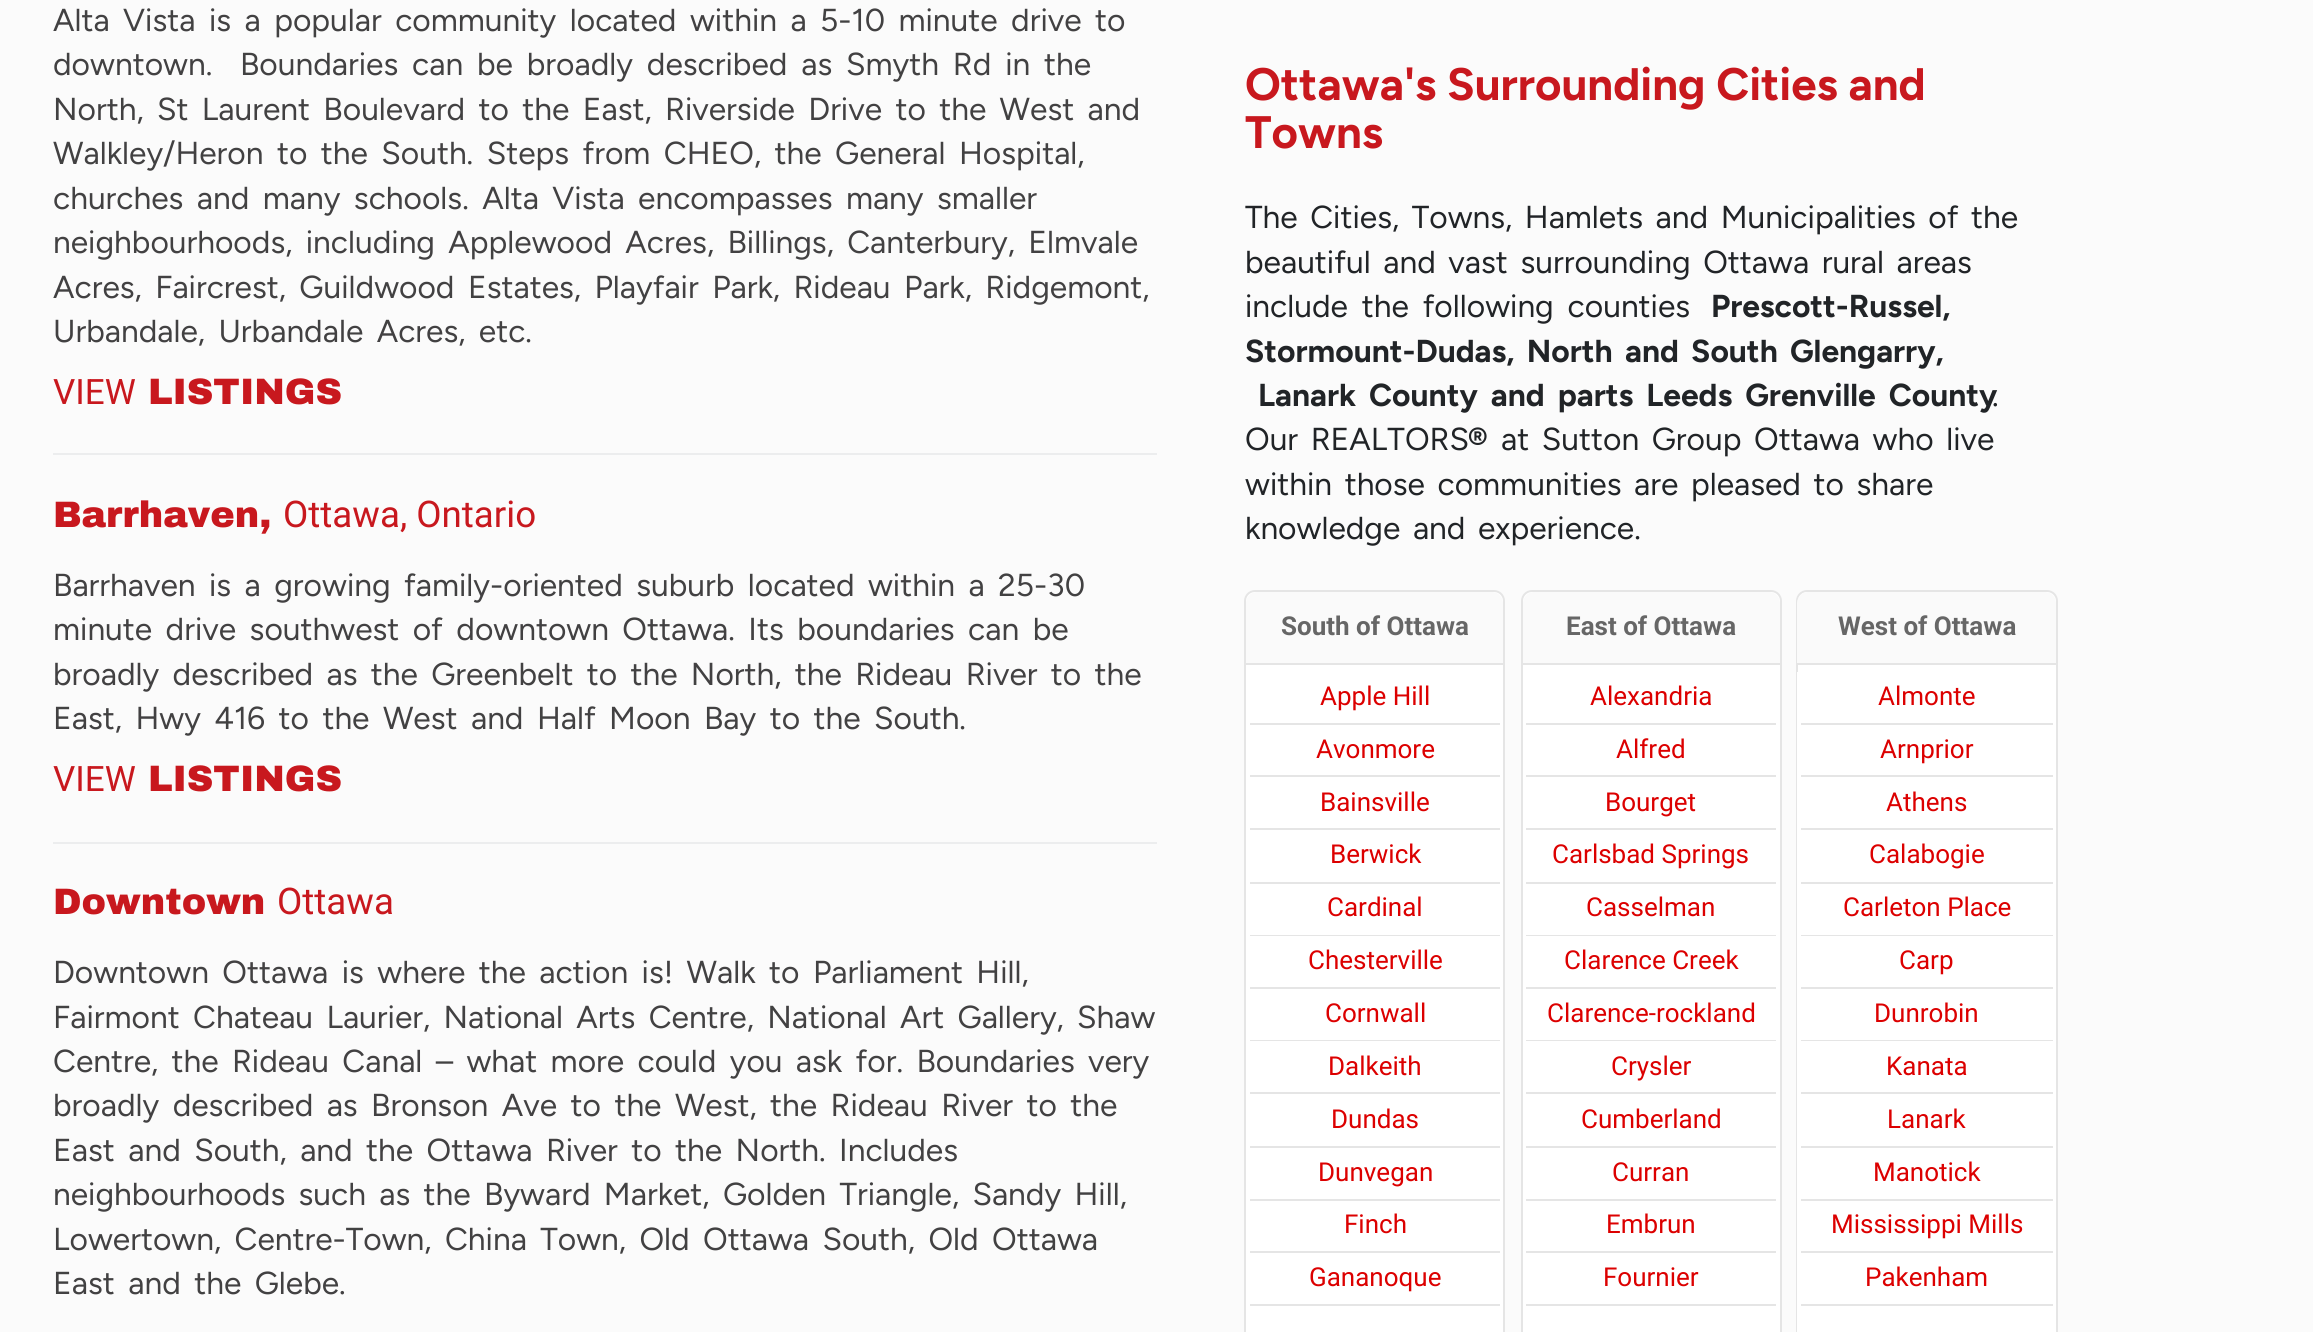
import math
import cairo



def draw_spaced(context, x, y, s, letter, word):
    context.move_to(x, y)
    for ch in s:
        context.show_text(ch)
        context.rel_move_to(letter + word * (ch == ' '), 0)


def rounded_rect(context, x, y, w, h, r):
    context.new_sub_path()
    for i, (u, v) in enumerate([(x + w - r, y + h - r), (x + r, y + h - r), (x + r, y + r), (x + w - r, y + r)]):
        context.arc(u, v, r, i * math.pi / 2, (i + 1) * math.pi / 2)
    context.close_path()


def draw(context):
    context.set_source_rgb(251 / 255, 251 / 255, 251 / 255)
    context.paint()
    context.set_source_rgb(236 / 255, 237 / 255, 238 / 255)
    context.rectangle(53, 453, 1104, 2)
    context.fill()
    context.rectangle(53, 842, 1104, 2)
    context.fill()
    context.set_source_rgb(1, 1, 1)
    rounded_rect(context, 1245, 591, 259, 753, 10)
    context.fill_preserve()
    context.set_source_rgb(229 / 255, 229 / 255, 229 / 255)
    context.stroke()
    context.set_source_rgb(250 / 255, 250 / 255, 250 / 255)
    context.new_path()
    context.move_to(1257, 592)
    context.line_to(1492, 592)
    context.curve_to(1498, 592, 1503, 597, 1503, 603)
    context.line_to(1503, 665)
    context.line_to(1246, 665)
    context.line_to(1246, 603)
    context.curve_to(1246, 597, 1251, 592, 1257, 592)
    context.close_path()
    context.fill()
    context.set_source_rgb(229 / 255, 229 / 255, 229 / 255)
    context.rectangle(1246, 663, 257, 2)
    context.fill()
    context.rectangle(1250, 723, 250, 2)
    context.fill()
    context.rectangle(1250, 775, 250, 2)
    context.fill()
    context.rectangle(1250, 828, 250, 2)
    context.fill()
    context.rectangle(1250, 882, 250, 2)
    context.fill()
    context.rectangle(1250, 935, 250, 1)
    context.fill()
    context.rectangle(1250, 987, 250, 2)
    context.fill()
    context.rectangle(1250, 1040, 250, 1)
    context.fill()
    context.rectangle(1250, 1092, 250, 2)
    context.fill()
    context.rectangle(1250, 1146, 250, 2)
    context.fill()
    context.rectangle(1250, 1199, 250, 2)
    context.fill()
    context.rectangle(1250, 1251, 250, 2)
    context.fill()
    context.rectangle(1250, 1304, 250, 2)
    context.fill()
    context.set_source_rgb(1, 1, 1)
    rounded_rect(context, 1522, 591, 259, 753, 10)
    context.fill_preserve()
    context.set_source_rgb(229 / 255, 229 / 255, 229 / 255)
    context.stroke()
    context.set_source_rgb(250 / 255, 250 / 255, 250 / 255)
    context.new_path()
    context.move_to(1534, 592)
    context.line_to(1769, 592)
    context.curve_to(1775, 592, 1780, 597, 1780, 603)
    context.line_to(1780, 665)
    context.line_to(1523, 665)
    context.line_to(1523, 603)
    context.curve_to(1523, 597, 1528, 592, 1534, 592)
    context.close_path()
    context.fill()
    context.set_source_rgb(229 / 255, 229 / 255, 229 / 255)
    context.rectangle(1523, 663, 257, 2)
    context.fill()
    context.rectangle(1526, 723, 250, 2)
    context.fill()
    context.rectangle(1526, 775, 250, 2)
    context.fill()
    context.rectangle(1526, 828, 250, 2)
    context.fill()
    context.rectangle(1526, 882, 250, 2)
    context.fill()
    context.rectangle(1526, 935, 250, 1)
    context.fill()
    context.rectangle(1526, 987, 250, 2)
    context.fill()
    context.rectangle(1526, 1040, 250, 1)
    context.fill()
    context.rectangle(1526, 1092, 250, 2)
    context.fill()
    context.rectangle(1526, 1146, 250, 2)
    context.fill()
    context.rectangle(1526, 1199, 250, 2)
    context.fill()
    context.rectangle(1526, 1251, 250, 2)
    context.fill()
    context.rectangle(1526, 1304, 250, 2)
    context.fill()
    context.set_source_rgb(1, 1, 1)
    rounded_rect(context, 1797, 591, 260, 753, 10)
    context.fill_preserve()
    context.set_source_rgb(229 / 255, 229 / 255, 229 / 255)
    context.stroke()
    context.set_source_rgb(250 / 255, 250 / 255, 250 / 255)
    context.new_path()
    context.move_to(1808, 592)
    context.line_to(2045, 592)
    context.curve_to(2051, 592, 2056, 597, 2056, 603)
    context.line_to(2056, 665)
    context.line_to(1797, 665)
    context.line_to(1797, 603)
    context.curve_to(1797, 597, 1802, 592, 1808, 592)
    context.close_path()
    context.fill()
    context.set_source_rgb(229 / 255, 229 / 255, 229 / 255)
    context.rectangle(1797, 663, 259, 2)
    context.fill()
    context.set_source_rgb(1, 1, 1)
    context.rectangle(1797, 672, 1, 660)
    context.fill()
    context.set_source_rgb(229 / 255, 229 / 255, 229 / 255)
    context.rectangle(1801, 723, 252, 2)
    context.fill()
    context.rectangle(1801, 775, 252, 2)
    context.fill()
    context.rectangle(1801, 828, 252, 2)
    context.fill()
    context.rectangle(1801, 882, 252, 2)
    context.fill()
    context.rectangle(1801, 935, 252, 1)
    context.fill()
    context.rectangle(1801, 987, 252, 2)
    context.fill()
    context.rectangle(1801, 1040, 252, 1)
    context.fill()
    context.rectangle(1801, 1092, 252, 2)
    context.fill()
    context.rectangle(1801, 1146, 252, 2)
    context.fill()
    context.rectangle(1801, 1199, 252, 2)
    context.fill()
    context.rectangle(1801, 1251, 252, 2)
    context.fill()
    context.rectangle(1801, 1304, 252, 2)
    context.fill()
    context.select_font_face("Figtree")
    context.set_font_size(31.75)
    context.set_source_rgb(66 / 255, 65 / 255, 66 / 255)
    draw_spaced(context, 53, 31, "Alta Vista is a popular community located within a 5-10 minute drive to", 0, 5.6)
    draw_spaced(context, 53, 75, "downtown.  Boundaries can be broadly described as Smyth Rd in the", 0, 6)
    draw_spaced(context, 53, 120, "North, St Laurent Boulevard to the East, Riverside Drive to the West and", 0, 5.5)
    draw_spaced(context, 53, 164, "Walkley/Heron to the South. Steps from CHEO, the General Hospital,", 0, 5.6)
    draw_spaced(context, 53, 209, "churches and many schools. Alta Vista encompasses many smaller", 0, 5.6)
    draw_spaced(context, 53, 253, "neighbourhoods, including Applewood Acres, Billings, Canterbury, Elmvale", 0, 5.5)
    draw_spaced(context, 53, 298, "Acres, Faircrest, Guildwood Estates, Playfair Park, Rideau Park, Ridgemont,", 0, 5.6)
    draw_spaced(context, 53, 342, "Urbandale, Urbandale Acres, etc.", 0, 5.6)
    context.select_font_face("Roboto")
    context.set_font_size(35)
    context.set_source_rgb(200 / 255, 24 / 255, 30 / 255)
    context.move_to(53, 404)
    context.show_text("VIEW")
    context.select_font_face("Archivo Black Black")
    context.set_font_size(36.75)
    context.move_to(148, 404)
    context.show_text("LISTINGS")
    context.move_to(53, 527)
    context.show_text("Barrhaven,")
    context.select_font_face("Roboto")
    context.move_to(283, 527)
    context.show_text("Ottawa, Ontario")
    context.select_font_face("Figtree")
    context.set_font_size(31.75)
    context.set_source_rgb(66 / 255, 65 / 255, 66 / 255)
    draw_spaced(context, 53, 596, "Barrhaven is a growing family-oriented suburb located within a 25-30", 0, 5.6)
    draw_spaced(context, 53, 640, "minute drive southwest of downtown Ottawa. Its boundaries can be", 0, 5.6)
    draw_spaced(context, 53, 685, "broadly described as the Greenbelt to the North, the Rideau River to the", 0, 5.5)
    draw_spaced(context, 53, 729, "East, Hwy 416 to the West and Half Moon Bay to the South.", 0, 5.6)
    context.select_font_face("Roboto")
    context.set_font_size(35)
    context.set_source_rgb(200 / 255, 24 / 255, 30 / 255)
    context.move_to(53, 791)
    context.show_text("VIEW")
    context.select_font_face("Archivo Black Black")
    context.set_font_size(36.75)
    context.move_to(148, 791)
    context.show_text("LISTINGS")
    context.move_to(53, 914)
    context.show_text("Downtown")
    context.select_font_face("Roboto")
    context.move_to(277, 914)
    context.show_text("Ottawa")
    context.select_font_face("Figtree")
    context.set_font_size(31.75)
    context.set_source_rgb(66 / 255, 65 / 255, 66 / 255)
    draw_spaced(context, 53, 983, "Downtown Ottawa is where the action is! Walk to Parliament Hill,", 0, 5.6)
    draw_spaced(context, 53, 1028, "Fairmont Chateau Laurier, National Arts Centre, National Art Gallery, Shaw", 0, 5.5)
    draw_spaced(context, 53, 1072, "Centre, the Rideau Canal – what more could you ask for. Boundaries very", 0, 5.5)
    draw_spaced(context, 53, 1116, "broadly described as Bronson Ave to the West, the Rideau River to the", 0, 5.6)
    draw_spaced(context, 53, 1161, "East and South, and the Ottawa River to the North. Includes", 0, 5.6)
    draw_spaced(context, 53, 1205, "neighbourhoods such as the Byward Market, Golden Triangle, Sandy Hill,", 0, 5.5)
    draw_spaced(context, 53, 1250, "Lowertown, Centre-Town, China Town, Old Ottawa South, Old Ottawa", 0, 5.6)
    draw_spaced(context, 53, 1294, "East and the Glebe.", 0, 5.6)
    context.select_font_face("Figtree", cairo.FontSlant.NORMAL, cairo.FontWeight.BOLD)
    context.set_font_size(45.5)
    context.set_source_rgb(200 / 255, 24 / 255, 30 / 255)
    context.move_to(1245, 100)
    context.show_text("Ottawa's Surrounding Cities and")
    context.move_to(1245, 148)
    context.show_text("Towns")
    context.select_font_face("Figtree")
    context.set_font_size(31.75)
    context.set_source_rgb(33 / 255, 36 / 255, 39 / 255)
    draw_spaced(context, 1245, 228, "The Cities, Towns, Hamlets and Municipalities of the", 0, 4.75)
    draw_spaced(context, 1245, 273, "beautiful and vast surrounding Ottawa rural areas", 0, 4.75)
    draw_spaced(context, 1245, 317, "include the following counties", 0, 6)
    context.select_font_face("Figtree", cairo.FontSlant.NORMAL, cairo.FontWeight.BOLD)
    context.move_to(1711, 317)
    context.show_text("Prescott-Russel,")
    draw_spaced(context, 1245, 362, "Stormount-Dudas, North and South Glengarry,", 0, 4.75)
    draw_spaced(context, 1258, 406, "Lanark County and parts Leeds Grenville County", 0, 5.5)
    context.select_font_face("Figtree")
    context.move_to(1992, 406)
    context.show_text(".")
    draw_spaced(context, 1245, 450, "Our REALTORS", 0, 4.75)
    context.select_font_face("Figtree", cairo.FontSlant.NORMAL, cairo.FontWeight.BOLD)
    context.move_to(1468, 450)
    context.show_text("®")
    context.select_font_face("Figtree")
    draw_spaced(context, 1501, 450, "at Sutton Group Ottawa who live", 0, 4.75)
    draw_spaced(context, 1245, 495, "within those communities are pleased to share", 0, 4.75)
    draw_spaced(context, 1245, 539, "knowledge and experience.", 0, 4.75)
    context.select_font_face("Roboto", cairo.FontSlant.NORMAL, cairo.FontWeight.BOLD)
    context.set_font_size(26)
    context.set_source_rgb(102 / 255, 102 / 255, 102 / 255)
    context.move_to(1281, 635)
    context.show_text("South of Ottawa")
    context.select_font_face("Roboto")
    context.set_source_rgb(220 / 255, 0, 0)
    context.move_to(1320, 705)
    context.show_text("Apple Hill")
    context.move_to(1316, 758)
    context.show_text("Avonmore")
    context.move_to(1320, 811)
    context.show_text("Bainsville")
    context.move_to(1330, 863)
    context.show_text("Berwick")
    context.move_to(1327, 916)
    context.show_text("Cardinal")
    context.move_to(1308, 969)
    context.show_text("Chesterville")
    context.move_to(1325, 1022)
    context.show_text("Cornwall")
    context.move_to(1328, 1075)
    context.show_text("Dalkeith")
    context.move_to(1331, 1128)
    context.show_text("Dundas")
    context.move_to(1318, 1181)
    context.show_text("Dunvegan")
    context.move_to(1344, 1233)
    context.show_text("Finch")
    context.move_to(1309, 1286)
    context.show_text("Gananoque")
    context.select_font_face("Roboto", cairo.FontSlant.NORMAL, cairo.FontWeight.BOLD)
    context.set_source_rgb(102 / 255, 102 / 255, 102 / 255)
    context.move_to(1566, 635)
    context.show_text("East of Ottawa")
    context.select_font_face("Roboto")
    context.set_source_rgb(220 / 255, 0, 0)
    context.move_to(1590, 705)
    context.show_text("Alexandria")
    context.move_to(1616, 758)
    context.show_text("Alfred")
    context.move_to(1605, 811)
    context.show_text("Bourget")
    context.move_to(1552, 863)
    context.show_text("Carlsbad Springs")
    context.move_to(1586, 916)
    context.show_text("Casselman")
    context.move_to(1564, 969)
    context.show_text("Clarence Creek")
    context.move_to(1547, 1022)
    context.show_text("Clarence-rockland")
    context.move_to(1611, 1075)
    context.show_text("Crysler")
    context.move_to(1581, 1128)
    context.show_text("Cumberland")
    context.move_to(1612, 1181)
    context.show_text("Curran")
    context.move_to(1606, 1233)
    context.show_text("Embrun")
    context.move_to(1603, 1286)
    context.show_text("Fournier")
    context.select_font_face("Roboto", cairo.FontSlant.NORMAL, cairo.FontWeight.BOLD)
    context.set_source_rgb(102 / 255, 102 / 255, 102 / 255)
    context.move_to(1838, 635)
    context.show_text("West of Ottawa")
    context.select_font_face("Roboto")
    context.set_source_rgb(220 / 255, 0, 0)
    context.move_to(1878, 705)
    context.show_text("Almonte")
    context.move_to(1880, 758)
    context.show_text("Arnprior")
    context.move_to(1886, 811)
    context.show_text("Athens")
    context.move_to(1869, 863)
    context.show_text("Calabogie")
    context.move_to(1843, 916)
    context.show_text("Carleton Place")
    context.move_to(1899, 969)
    context.show_text("Carp")
    context.move_to(1874, 1022)
    context.show_text("Dunrobin")
    context.move_to(1886, 1075)
    context.show_text("Kanata")
    context.move_to(1887, 1128)
    context.show_text("Lanark")
    context.move_to(1873, 1181)
    context.show_text("Manotick")
    context.move_to(1831, 1233)
    context.show_text("Mississippi Mills")
    context.move_to(1865, 1286)
    context.show_text("Pakenham")


surface = cairo.ImageSurface(cairo.Format.RGB24, 2313, 1332)
context = cairo.Context(surface)
options = cairo.FontOptions()
options.set_hint_metrics(cairo.HintMetrics.OFF)
options.set_hint_style(cairo.HintStyle.NONE)
context.set_font_options(options)
context.set_miter_limit(4)
draw(context)
surface.write_to_png("out.png")
